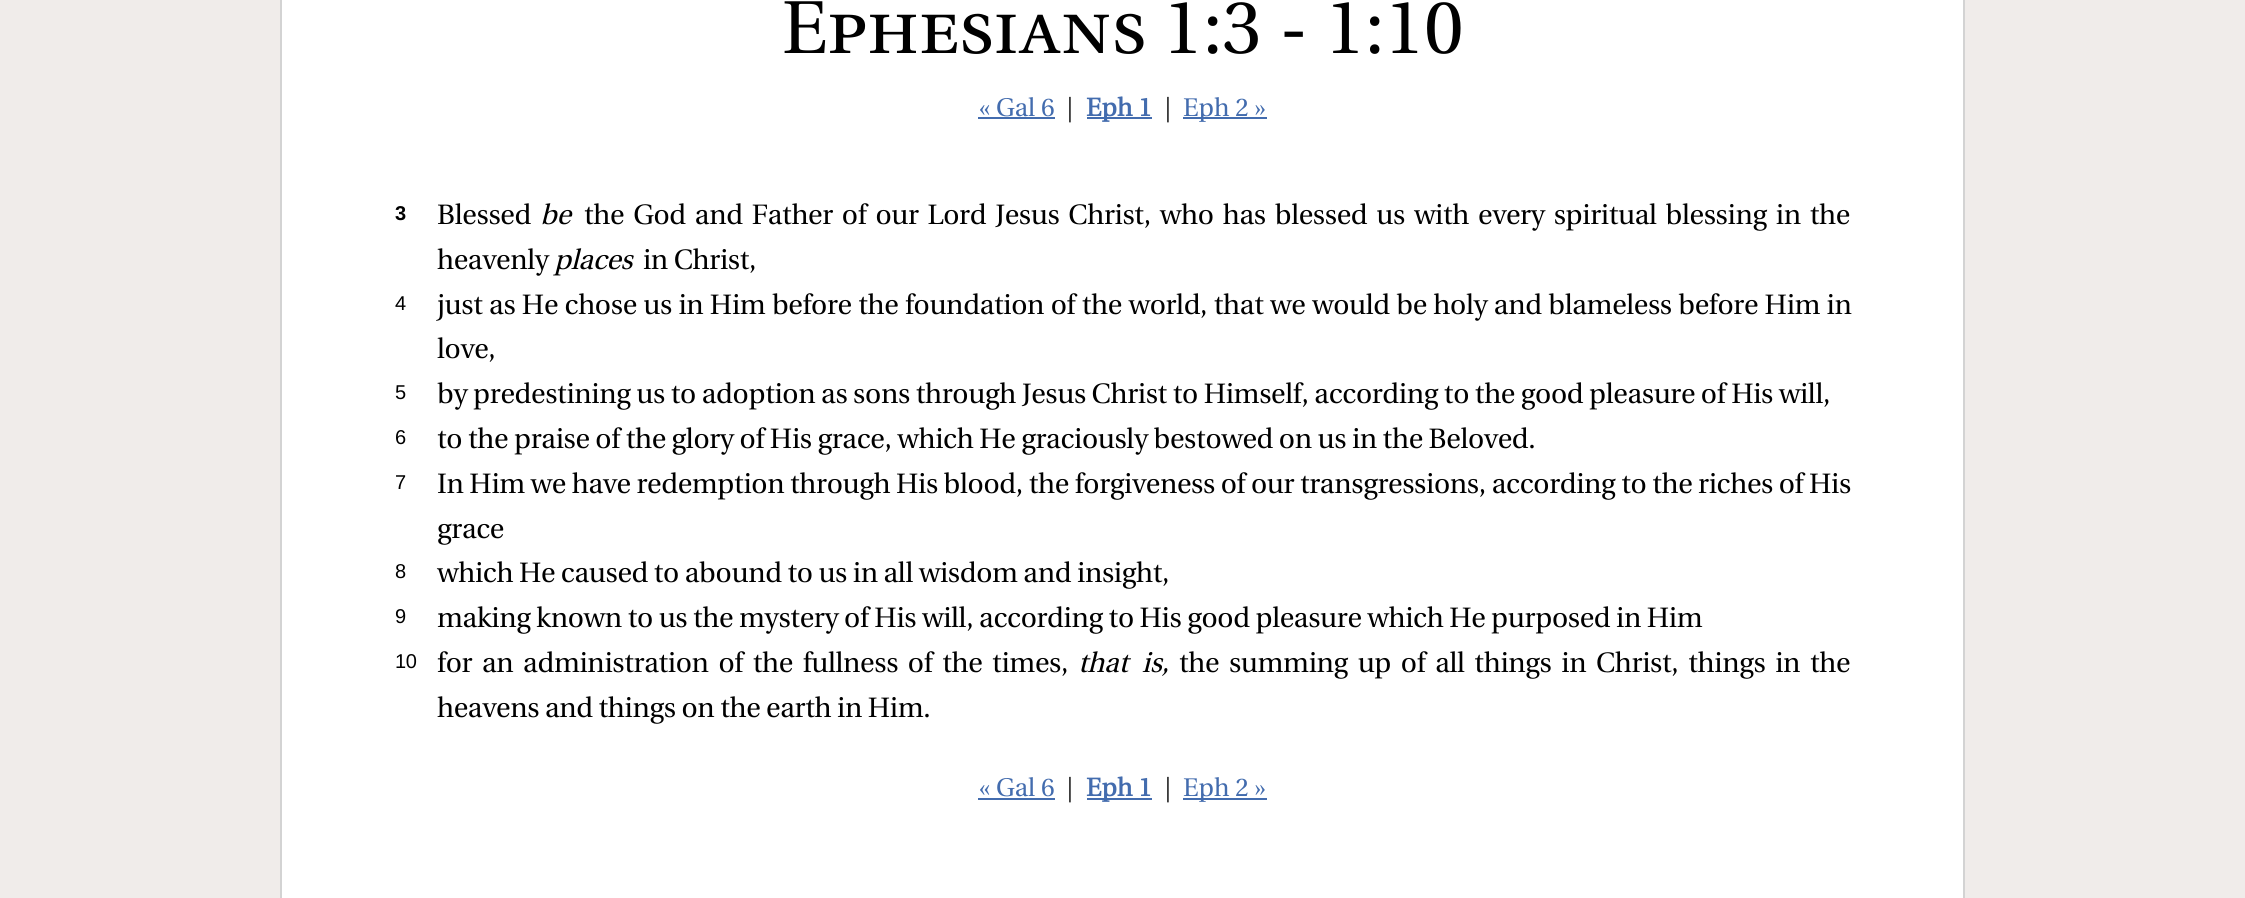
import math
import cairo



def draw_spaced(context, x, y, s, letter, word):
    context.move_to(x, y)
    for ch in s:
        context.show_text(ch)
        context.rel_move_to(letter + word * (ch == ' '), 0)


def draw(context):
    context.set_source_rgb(240 / 255, 236 / 255, 234 / 255)
    context.paint()
    context.set_source_rgb(1, 1, 1)
    context.rectangle(281, -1, 1683, 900)
    context.fill_preserve()
    context.set_source_rgb(211 / 255, 211 / 255, 211 / 255)
    context.stroke()
    context.set_source_rgb(67 / 255, 108 / 255, 174 / 255)
    context.rectangle(978, 117, 77, 2)
    context.fill()
    context.rectangle(1087, 117, 65, 2)
    context.fill()
    context.rectangle(1183, 117, 84, 2)
    context.fill()
    context.rectangle(978, 798, 77, 2)
    context.fill()
    context.rectangle(1087, 798, 65, 2)
    context.fill()
    context.rectangle(1183, 798, 84, 2)
    context.fill()
    context.select_font_face("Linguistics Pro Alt")
    context.set_font_size(74.75)
    context.set_source_rgb(0, 0, 0)
    context.move_to(782, 53)
    context.show_text("Ephesians 1:3 - 1:10")
    context.select_font_face("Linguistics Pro")
    context.set_font_size(25.5)
    context.set_source_rgb(67 / 255, 108 / 255, 174 / 255)
    context.move_to(979, 116)
    context.show_text("« Gal 6")
    context.set_source_rgb(51 / 255, 51 / 255, 51 / 255)
    context.move_to(1067, 116)
    context.show_text("|")
    context.select_font_face("Linguistics Pro", cairo.FontSlant.NORMAL, cairo.FontWeight.BOLD)
    context.set_source_rgb(67 / 255, 108 / 255, 174 / 255)
    context.move_to(1086, 116)
    context.show_text("Eph 1")
    context.select_font_face("Linguistics Pro")
    context.set_source_rgb(51 / 255, 51 / 255, 51 / 255)
    context.move_to(1165, 116)
    context.show_text("|")
    context.set_source_rgb(67 / 255, 108 / 255, 174 / 255)
    context.move_to(1183, 116)
    context.show_text("Eph 2 »")
    context.select_font_face("Liberation Sans", cairo.FontSlant.NORMAL, cairo.FontWeight.BOLD)
    context.set_font_size(20)
    context.set_source_rgb(0, 0, 0)
    draw_spaced(context, 395, 220, "3", -0.28, 0)
    context.select_font_face("Linguistics Pro")
    context.set_font_size(28)
    draw_spaced(context, 437, 224, "Blessed", -0.28, 0)
    context.select_font_face("Linguistics Pro", cairo.FontSlant.ITALIC)
    draw_spaced(context, 540, 224, "be", -0.28, 0)
    context.select_font_face("Linguistics Pro")
    draw_spaced(context, 584, 224, "the God and Father of our Lord Jesus Christ, who has blessed us with every spiritual blessing in the", -0.28, 3)
    draw_spaced(context, 437, 269, "heavenly", -0.28, 0)
    context.select_font_face("Linguistics Pro", cairo.FontSlant.ITALIC)
    draw_spaced(context, 554, 269, "places", -0.28, 0)
    context.select_font_face("Linguistics Pro")
    draw_spaced(context, 643, 269, "in Christ,", -0.28, -0.25)
    context.select_font_face("Liberation Sans")
    context.set_font_size(20)
    draw_spaced(context, 395, 310, "4", -0.28, 0)
    context.select_font_face("Linguistics Pro")
    context.set_font_size(28)
    draw_spaced(context, 437, 314, "just as He chose us in Him before the foundation of the world, that we would be holy and blameless before Him in", -0.28, 0.5)
    draw_spaced(context, 437, 358, "love,", -0.28, 0)
    context.select_font_face("Liberation Sans")
    context.set_font_size(20)
    draw_spaced(context, 395, 399, "5", -0.28, 0)
    context.select_font_face("Linguistics Pro")
    context.set_font_size(28)
    draw_spaced(context, 437, 403, "by predestining us to adoption as sons through Jesus Christ to Himself, according to the good pleasure of His will,", -0.28, -0.25)
    context.select_font_face("Liberation Sans")
    context.set_font_size(20)
    draw_spaced(context, 395, 444, "6", -0.28, 0)
    context.select_font_face("Linguistics Pro")
    context.set_font_size(28)
    draw_spaced(context, 437, 448, "to the praise of the glory of His grace, which He graciously bestowed on us in the Beloved.", -0.28, -0.25)
    context.select_font_face("Liberation Sans")
    context.set_font_size(20)
    draw_spaced(context, 395, 489, "7", -0.28, 0)
    context.select_font_face("Linguistics Pro")
    context.set_font_size(28)
    draw_spaced(context, 437, 493, "In Him we have redemption through His blood, the forgiveness of our transgressions, according to the riches of His", -0.28, -0.25)
    draw_spaced(context, 437, 538, "grace", -0.28, 0)
    context.select_font_face("Liberation Sans")
    context.set_font_size(20)
    draw_spaced(context, 395, 578, "8", -0.28, 0)
    context.select_font_face("Linguistics Pro")
    context.set_font_size(28)
    draw_spaced(context, 437, 582, "which He caused to abound to us in all wisdom and insight,", -0.28, -0.25)
    context.select_font_face("Liberation Sans")
    context.set_font_size(20)
    draw_spaced(context, 395, 623, "9", -0.28, 0)
    context.select_font_face("Linguistics Pro")
    context.set_font_size(28)
    draw_spaced(context, 437, 627, "making known to us the mystery of His will, according to His good pleasure which He purposed in Him", -0.28, -0.25)
    context.select_font_face("Liberation Sans")
    context.set_font_size(20)
    draw_spaced(context, 395, 668, "10", -0.28, 0)
    context.select_font_face("Linguistics Pro")
    context.set_font_size(28)
    draw_spaced(context, 437, 672, "for an administration of the fullness of the times,", -0.28, 3.75)
    context.select_font_face("Linguistics Pro", cairo.FontSlant.ITALIC)
    draw_spaced(context, 1078, 672, "that is,", -0.28, 8)
    context.select_font_face("Linguistics Pro")
    draw_spaced(context, 1179, 672, "the summing up of all things in Christ, things in the", -0.28, 3.75)
    draw_spaced(context, 437, 717, "heavens and things on the earth in Him.", -0.28, -0.25)
    context.set_font_size(25.5)
    context.set_source_rgb(67 / 255, 108 / 255, 174 / 255)
    context.move_to(979, 796)
    context.show_text("« Gal 6")
    context.set_source_rgb(51 / 255, 51 / 255, 51 / 255)
    context.move_to(1067, 796)
    context.show_text("|")
    context.select_font_face("Linguistics Pro", cairo.FontSlant.NORMAL, cairo.FontWeight.BOLD)
    context.set_source_rgb(67 / 255, 108 / 255, 174 / 255)
    context.move_to(1086, 796)
    context.show_text("Eph 1")
    context.select_font_face("Linguistics Pro")
    context.set_source_rgb(51 / 255, 51 / 255, 51 / 255)
    context.move_to(1165, 796)
    context.show_text("|")
    context.set_source_rgb(67 / 255, 108 / 255, 174 / 255)
    context.move_to(1183, 796)
    context.show_text("Eph 2 »")


surface = cairo.ImageSurface(cairo.Format.RGB24, 2245, 898)
context = cairo.Context(surface)
options = cairo.FontOptions()
options.set_hint_metrics(cairo.HintMetrics.OFF)
options.set_hint_style(cairo.HintStyle.NONE)
context.set_font_options(options)
context.set_miter_limit(4)
draw(context)
surface.write_to_png("out.png")
